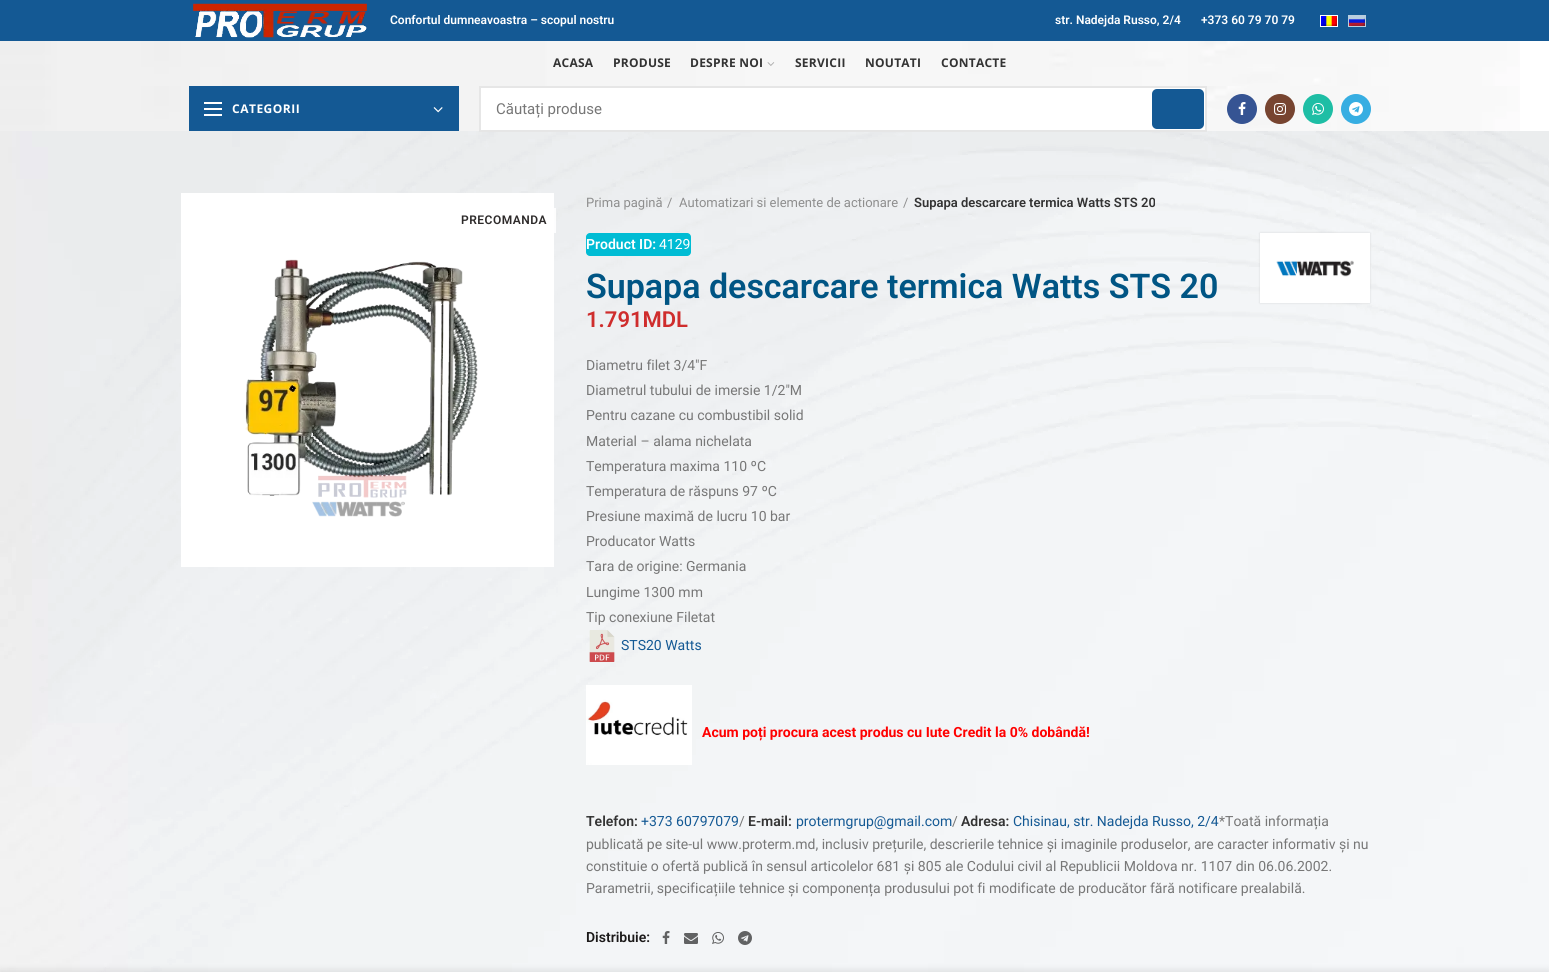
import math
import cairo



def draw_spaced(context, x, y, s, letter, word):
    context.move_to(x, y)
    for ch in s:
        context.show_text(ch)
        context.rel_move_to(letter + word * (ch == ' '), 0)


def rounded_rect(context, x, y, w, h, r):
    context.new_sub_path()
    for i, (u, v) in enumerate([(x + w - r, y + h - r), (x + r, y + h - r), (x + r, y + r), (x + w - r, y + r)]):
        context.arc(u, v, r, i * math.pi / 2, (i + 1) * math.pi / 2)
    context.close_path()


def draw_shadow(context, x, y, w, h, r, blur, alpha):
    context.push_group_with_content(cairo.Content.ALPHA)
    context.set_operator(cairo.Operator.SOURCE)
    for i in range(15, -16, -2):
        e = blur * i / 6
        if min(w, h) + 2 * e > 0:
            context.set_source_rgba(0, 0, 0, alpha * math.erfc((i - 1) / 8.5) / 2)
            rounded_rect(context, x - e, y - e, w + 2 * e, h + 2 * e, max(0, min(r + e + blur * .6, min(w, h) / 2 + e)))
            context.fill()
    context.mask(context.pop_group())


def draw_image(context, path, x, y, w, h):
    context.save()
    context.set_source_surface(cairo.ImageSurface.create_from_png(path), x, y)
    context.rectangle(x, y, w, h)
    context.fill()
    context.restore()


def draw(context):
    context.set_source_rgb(1, 1, 1)
    context.paint()
    context.set_source_rgb(20 / 255, 89 / 255, 148 / 255)
    context.rectangle(0, 0, 1549, 41)
    context.fill()
    draw_image(context, "images/1.png", 193, 3, 174, 35)
    context.rectangle(1320.5, 15.5, 17, 11)
    context.set_source_rgb(1, 1, 1)
    context.set_line_width(1)
    context.stroke()
    draw_image(context, "images/2.png", 1321, 16, 16, 10)
    context.rectangle(1348.5, 15.5, 17, 11)
    context.set_source_rgb(185 / 255, 205 / 255, 223 / 255)
    context.stroke()
    draw_image(context, "images/3.png", 1349, 16, 16, 10)
    draw_image(context, "images/4.png", 0, 41, 1520, 45)
    draw_image(context, "images/5.png", 767, 62, 8, 4)
    draw_image(context, "images/4.png", 0, 86, 1520, 45)
    context.set_source_rgb(20 / 255, 89 / 255, 148 / 255)
    context.rectangle(189, 86, 270, 45)
    context.fill()
    context.set_source_rgb(1, 1, 1)
    context.rectangle(204, 108, 18, 2)
    context.fill()
    context.rectangle(204, 102, 18, 2)
    context.fill()
    context.rectangle(204, 114, 18, 2)
    context.fill()
    draw_image(context, "images/6.png", 433, 107, 10, 6)
    draw_image(context, "images/11.png", 0, 131, 1549, 841)
    context.rectangle(480, 87, 726, 44)
    context.fill_preserve()
    context.set_source_rgb(230 / 255, 230 / 255, 230 / 255)
    context.set_line_width(2)
    context.stroke()
    context.set_source_rgb(20 / 255, 89 / 255, 148 / 255)
    rounded_rect(context, 1152, 89, 52, 40, 5)
    context.fill()
    context.set_source_rgb(54 / 255, 84 / 255, 147 / 255)
    context.arc(1242, 109, 15, 0, 2 * math.pi)
    context.fill()
    draw_image(context, "images/7.png", 1238, 102, 8, 13)
    context.set_source_rgb(119 / 255, 68 / 255, 48 / 255)
    context.arc(1280, 109, 15, 0, 2 * math.pi)
    context.fill()
    draw_image(context, "images/8.png", 1274, 103, 12, 12)
    context.set_source_rgb(30 / 255, 190 / 255, 165 / 255)
    context.arc(1318, 109, 15, 0, 2 * math.pi)
    context.fill()
    draw_image(context, "images/9.png", 1312, 103, 12, 12)
    context.set_source_rgb(55 / 255, 174 / 255, 226 / 255)
    context.arc(1356, 109, 15, 0, 2 * math.pi)
    context.fill()
    draw_image(context, "images/10.png", 1349, 102, 14, 14)
    context.set_source_rgb(1, 1, 1)
    context.rectangle(181, 193, 373, 374)
    context.fill()
    draw_image(context, "images/12.png", 245, 259, 233, 258)
    context.set_source_rgba(1, 1, 1, 0.9)
    context.rectangle(554, 208, 2, 25)
    context.fill()
    context.set_source_rgb(0, 188 / 255, 212 / 255)
    rounded_rect(context, 586, 233, 105, 23, 4)
    context.fill()
    context.set_source_rgb(0, 0, 0)
    draw_shadow(context, 1260, 233, 110, 70, 0, 1, 0.12)
    context.set_source_rgb(1, 1, 1)
    context.rectangle(1260, 233, 110, 70)
    context.fill()
    draw_image(context, "images/13.png", 1276, 260, 78, 17)
    draw_image(context, "images/14.png", 589, 630, 26, 32)
    draw_image(context, "images/15.png", 586, 685, 106, 80)
    draw_image(context, "images/16.png", 662, 931, 8, 13)
    draw_image(context, "images/17.png", 684, 933, 14, 11)
    draw_image(context, "images/18.png", 712, 932, 12, 12)
    draw_image(context, "images/19.png", 738, 931, 14, 14)
    context.set_source_rgb(0, 0, 0)
    draw_shadow(context, 0, 972, 1549, 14, 0, 4.5, 0.14)
    context.select_font_face("Roboto SemiBold")
    context.set_font_size(12)
    context.set_source_rgb(1, 1, 1)
    context.move_to(390, 24)
    context.show_text("Confortul dumneavoastra – scopul nostru")
    context.move_to(1055, 24)
    context.show_text("str. Nadejda Russo, 2/4")
    context.move_to(1201, 24)
    context.show_text("+373 60 79 70 79")
    context.select_font_face("Open Sans", cairo.FontSlant.NORMAL, cairo.FontWeight.BOLD)
    context.set_source_rgb(51 / 255, 51 / 255, 51 / 255)
    draw_spaced(context, 553, 67, "ACASA", 0.25, 0)
    draw_spaced(context, 613, 67, "PRODUSE", 0.25, 0)
    draw_spaced(context, 690, 67, "DESPRE NOI", 0.25, 0)
    draw_spaced(context, 795, 67, "SERVICII", 0.25, 0)
    draw_spaced(context, 865, 67, "NOUTATI", 0.25, 0)
    draw_spaced(context, 941, 67, "CONTACTE", 0.25, 0)
    context.set_source_rgb(1, 1, 1)
    draw_spaced(context, 232, 113, "CATEGORII", 0.5, 0)
    context.select_font_face("Roboto")
    context.set_font_size(15)
    context.set_source_rgb(119 / 255, 119 / 255, 119 / 255)
    context.move_to(496, 114)
    context.show_text("Căutați produse")
    context.select_font_face("Roboto SemiBold")
    context.set_font_size(12)
    context.set_source_rgb(45 / 255, 42 / 255, 42 / 255)
    draw_spaced(context, 461, 224, "PRECOMANDA", 0.5, 0)
    context.select_font_face("Roboto")
    context.set_font_size(13)
    context.set_source_rgb(142 / 255, 142 / 255, 142 / 255)
    context.move_to(586, 207)
    context.show_text("Prima pagină")
    context.move_to(667, 207)
    context.show_text("/")
    context.move_to(679, 207)
    context.show_text("Automatizari si elemente de actionare")
    context.move_to(903, 207)
    context.show_text("/")
    context.select_font_face("Roboto SemiBold")
    context.set_source_rgb(51 / 255, 51 / 255, 51 / 255)
    context.move_to(914, 207)
    context.show_text("Supapa descarcare termica Watts STS 20")
    context.set_font_size(14)
    context.set_source_rgb(1, 1, 1)
    context.move_to(586, 249)
    context.show_text("Product ID:")
    context.select_font_face("Roboto")
    context.move_to(659, 249)
    context.show_text("4129")
    context.select_font_face("Roboto SemiBold")
    context.set_font_size(34)
    context.set_source_rgb(0, 85 / 255, 132 / 255)
    context.move_to(586, 298)
    context.show_text("Supapa descarcare termica Watts STS 20")
    context.set_font_size(22)
    context.set_source_rgb(207 / 255, 45 / 255, 45 / 255)
    context.move_to(586, 327)
    context.show_text("1.791MDL")
    context.select_font_face("Roboto")
    context.set_font_size(14)
    context.set_source_rgb(119 / 255, 119 / 255, 119 / 255)
    context.move_to(586, 370)
    context.show_text("Diametru filet 3/4″F")
    context.move_to(586, 395)
    context.show_text("Diametrul tubului de imersie 1/2″M")
    context.move_to(586, 420)
    context.show_text("Pentru cazane cu combustibil solid")
    context.move_to(586, 446)
    context.show_text("Material – alama nichelata")
    context.move_to(586, 471)
    context.show_text("Temperatura maxima 110 ºC")
    context.move_to(586, 496)
    context.show_text("Temperatura de răspuns 97 ºC")
    context.move_to(586, 521)
    context.show_text("Presiune maximă de lucru 10 bar")
    context.move_to(586, 546)
    context.show_text("Producator Watts")
    context.move_to(586, 571)
    context.show_text("Tara de origine: Germania")
    context.move_to(586, 597)
    context.show_text("Lungime 1300 mm")
    context.move_to(586, 622)
    context.show_text("Tip conexiune Filetat")
    context.set_source_rgb(20 / 255, 89 / 255, 148 / 255)
    context.move_to(621, 650)
    context.show_text("STS20 Watts")
    context.select_font_face("Roboto", cairo.FontSlant.NORMAL, cairo.FontWeight.BOLD)
    context.set_source_rgb(1, 0, 0)
    context.move_to(702, 737)
    context.show_text("Acum poți procura acest produs cu Iute Credit la 0% dobândă!")
    context.select_font_face("Roboto SemiBold")
    context.set_source_rgb(51 / 255, 51 / 255, 51 / 255)
    context.move_to(586, 826)
    context.show_text("Telefon:")
    context.select_font_face("Roboto")
    context.set_source_rgb(20 / 255, 89 / 255, 148 / 255)
    context.move_to(641, 826)
    context.show_text("+373 60797079")
    context.set_source_rgb(119 / 255, 119 / 255, 119 / 255)
    context.move_to(739, 826)
    context.show_text("/")
    context.select_font_face("Roboto SemiBold")
    context.set_source_rgb(51 / 255, 51 / 255, 51 / 255)
    context.move_to(748, 826)
    context.show_text("E-mail:")
    context.select_font_face("Roboto")
    context.set_source_rgb(20 / 255, 89 / 255, 148 / 255)
    context.move_to(796, 826)
    context.show_text("protermgrup@gmail.com")
    context.set_source_rgb(119 / 255, 119 / 255, 119 / 255)
    context.move_to(952, 826)
    context.show_text("/")
    context.select_font_face("Roboto SemiBold")
    context.set_source_rgb(51 / 255, 51 / 255, 51 / 255)
    context.move_to(961, 826)
    context.show_text("Adresa:")
    context.select_font_face("Roboto")
    context.set_source_rgb(20 / 255, 89 / 255, 148 / 255)
    context.move_to(1013, 826)
    context.show_text("Chisinau, str. Nadejda Russo, 2/4")
    context.set_source_rgb(119 / 255, 119 / 255, 119 / 255)
    context.move_to(1219, 826)
    context.show_text("*Toată informația")
    context.move_to(586, 849)
    context.show_text("publicată pe site-ul www.proterm.md, inclusiv prețurile, descrierile tehnice și imaginile produselor, are caracter informativ și nu")
    context.move_to(586, 871)
    context.show_text("constituie o ofertă publică în sensul articolelor 681 și 805 ale Codului civil al Republicii Moldova nr. 1107 din 06.06.2002.")
    context.move_to(586, 893)
    context.show_text("Parametrii, specificațiile tehnice și componența produsului pot fi modificate de producător fără notificare prealabilă.")
    context.select_font_face("Roboto SemiBold")
    context.set_source_rgb(27 / 255, 25 / 255, 25 / 255)
    context.move_to(586, 942)
    context.show_text("Distribuie:")


surface = cairo.ImageSurface(cairo.Format.RGB24, 1549, 972)
context = cairo.Context(surface)
options = cairo.FontOptions()
options.set_hint_metrics(cairo.HintMetrics.OFF)
options.set_hint_style(cairo.HintStyle.NONE)
context.set_font_options(options)
context.set_miter_limit(4)
draw(context)
surface.write_to_png("out.png")
